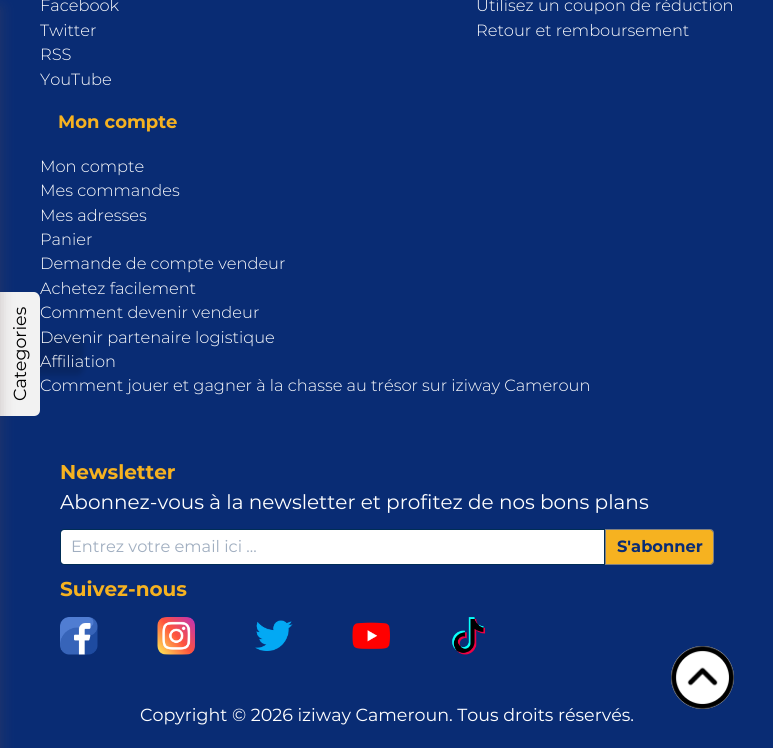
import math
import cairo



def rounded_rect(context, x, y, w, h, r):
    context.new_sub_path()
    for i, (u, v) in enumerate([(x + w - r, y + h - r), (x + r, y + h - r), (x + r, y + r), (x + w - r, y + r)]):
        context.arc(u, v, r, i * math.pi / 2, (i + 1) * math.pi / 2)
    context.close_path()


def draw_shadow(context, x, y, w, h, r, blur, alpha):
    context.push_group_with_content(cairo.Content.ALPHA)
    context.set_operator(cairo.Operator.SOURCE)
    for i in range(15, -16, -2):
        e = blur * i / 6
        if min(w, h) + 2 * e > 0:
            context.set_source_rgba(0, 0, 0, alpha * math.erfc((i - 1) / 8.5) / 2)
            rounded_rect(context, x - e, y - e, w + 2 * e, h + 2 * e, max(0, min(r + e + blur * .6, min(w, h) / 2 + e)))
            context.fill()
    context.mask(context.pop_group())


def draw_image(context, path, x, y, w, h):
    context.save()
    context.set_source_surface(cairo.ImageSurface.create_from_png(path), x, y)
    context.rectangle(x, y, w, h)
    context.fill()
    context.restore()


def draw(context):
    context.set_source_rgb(9 / 255, 44 / 255, 116 / 255)
    context.paint()
    context.set_source_rgb(0, 0, 0)
    draw_shadow(context, -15, 335, 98, 40, 6, 3, 0.15)
    context.set_source_rgb(242 / 255, 242 / 255, 242 / 255)
    context.new_path()
    context.move_to(0, 416)
    context.line_to(0, 292)
    context.line_to(34, 292)
    context.curve_to(37, 292, 40, 295, 40, 299)
    context.line_to(40, 410)
    context.curve_to(40, 414, 37, 416, 34, 416)
    context.close_path()
    context.fill()
    context.set_source_rgb(107 / 255, 82 / 255, 82 / 255)
    draw_shadow(context, -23, 8, 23, 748, 0, 7.5, 0.3)
    context.set_source_rgb(1, 1, 1)
    context.arc(702.5, 677.5, 31.5, 0, 2 * math.pi)
    context.fill()
    draw_image(context, "images/1.png", 671, 646, 63, 63)
    context.new_path()
    context.move_to(63.5, 530)
    context.line_to(604, 530)
    context.line_to(604, 564)
    context.line_to(63.5, 564)
    context.curve_to(62, 564, 61, 563, 61, 561.5)
    context.line_to(61, 532.5)
    context.curve_to(61, 531, 62, 530, 63.5, 530)
    context.close_path()
    context.fill()
    context.new_path()
    context.move_to(64, 529.5)
    context.line_to(604.5, 529.5)
    context.line_to(604.5, 564.5)
    context.line_to(64, 564.5)
    context.curve_to(62, 564.5, 60.5, 563, 60.5, 561)
    context.line_to(60.5, 533)
    context.curve_to(60.5, 531, 62, 529.5, 64, 529.5)
    context.close_path()
    context.set_source_rgb(0, 45 / 255, 86 / 255)
    context.set_line_width(1)
    context.stroke()
    context.set_source_rgb(246 / 255, 178 / 255, 32 / 255)
    context.new_path()
    context.move_to(606, 530)
    context.line_to(710.5, 530)
    context.curve_to(712, 530, 713, 531, 713, 532.5)
    context.line_to(713, 561.5)
    context.curve_to(713, 563, 712, 564, 710.5, 564)
    context.line_to(606, 564)
    context.close_path()
    context.fill()
    context.new_path()
    context.move_to(605.5, 529.5)
    context.line_to(710, 529.5)
    context.curve_to(712, 529.5, 713.5, 531, 713.5, 533)
    context.line_to(713.5, 561)
    context.curve_to(713.5, 563, 712, 564.5, 710, 564.5)
    context.line_to(605.5, 564.5)
    context.close_path()
    context.set_source_rgb(128 / 255, 128 / 255, 128 / 255)
    context.stroke()
    draw_image(context, "images/2.png", 60, 617, 38, 38)
    draw_image(context, "images/3.png", 157, 617, 38, 38)
    draw_image(context, "images/4.png", 255, 620, 38, 31)
    draw_image(context, "images/5.png", 352, 622, 38, 28)
    draw_image(context, "images/6.png", 452, 617, 33, 38)
    context.select_font_face("Montserrat")
    context.set_font_size(17.5)
    context.set_source_rgb(0, 0, 0)
    context.save()
    context.translate(26, 401)
    context.rotate(-90 * math.pi / 180)
    context.move_to(0, 0)
    context.show_text("Categories")
    context.restore()
    context.select_font_face("Montserrat Light")
    context.set_font_size(16.25)
    context.set_source_rgb(1, 1, 1)
    context.move_to(40, 11)
    context.show_text("Facebook")
    context.move_to(40, 36)
    context.show_text("Twitter")
    context.move_to(40, 60)
    context.show_text("RSS")
    context.move_to(40, 85)
    context.show_text("YouTube")
    context.move_to(476, 11)
    context.show_text("Utilisez un coupon de réduction")
    context.move_to(476, 36)
    context.show_text("Retour et remboursement")
    context.select_font_face("Montserrat", cairo.FontSlant.NORMAL, cairo.FontWeight.BOLD)
    context.set_font_size(18)
    context.set_source_rgb(246 / 255, 178 / 255, 32 / 255)
    context.move_to(58, 128)
    context.show_text("Mon compte")
    context.select_font_face("Montserrat Light")
    context.set_font_size(16.25)
    context.set_source_rgb(1, 1, 1)
    context.move_to(40, 172)
    context.show_text("Mon compte")
    context.move_to(40, 196)
    context.show_text("Mes commandes")
    context.move_to(40, 221)
    context.show_text("Mes adresses")
    context.move_to(40, 245)
    context.show_text("Panier")
    context.move_to(40, 269)
    context.show_text("Demande de compte vendeur")
    context.move_to(40, 294)
    context.show_text("Achetez facilement")
    context.move_to(40, 318)
    context.show_text("Comment devenir vendeur")
    context.move_to(40, 343)
    context.show_text("Devenir partenaire logistique")
    context.move_to(40, 367)
    context.show_text("Affiliation")
    context.move_to(40, 391)
    context.show_text("Comment jouer et gagner à la chasse au trésor sur iziway Cameroun")
    context.select_font_face("Montserrat", cairo.FontSlant.NORMAL, cairo.FontWeight.BOLD)
    context.set_font_size(20)
    context.set_source_rgb(246 / 255, 178 / 255, 32 / 255)
    context.move_to(60, 479)
    context.show_text("Newsletter")
    context.select_font_face("Montserrat")
    context.set_source_rgb(1, 1, 1)
    context.move_to(60, 509)
    context.show_text("Abonnez-vous à la newsletter et profitez de nos bons plans")
    context.set_font_size(16.25)
    context.set_source_rgb(160 / 255, 174 / 255, 192 / 255)
    context.move_to(71, 552)
    context.show_text("Entrez votre email ici ...")
    context.select_font_face("Montserrat", cairo.FontSlant.NORMAL, cairo.FontWeight.BOLD)
    context.set_source_rgb(9 / 255, 44 / 255, 116 / 255)
    context.move_to(617, 552)
    context.show_text("S'abonner")
    context.set_font_size(20)
    context.set_source_rgb(246 / 255, 178 / 255, 32 / 255)
    context.move_to(60, 596)
    context.show_text("Suivez-nous")
    context.select_font_face("Montserrat")
    context.set_font_size(17.5)
    context.set_source_rgb(1, 1, 1)
    context.move_to(140, 721)
    context.show_text("Copyright © 2026 iziway Cameroun. Tous droits réservés.")


surface = cairo.ImageSurface(cairo.Format.RGB24, 773, 748)
context = cairo.Context(surface)
options = cairo.FontOptions()
options.set_hint_metrics(cairo.HintMetrics.OFF)
options.set_hint_style(cairo.HintStyle.NONE)
context.set_font_options(options)
context.set_miter_limit(4)
draw(context)
surface.write_to_png("out.png")
